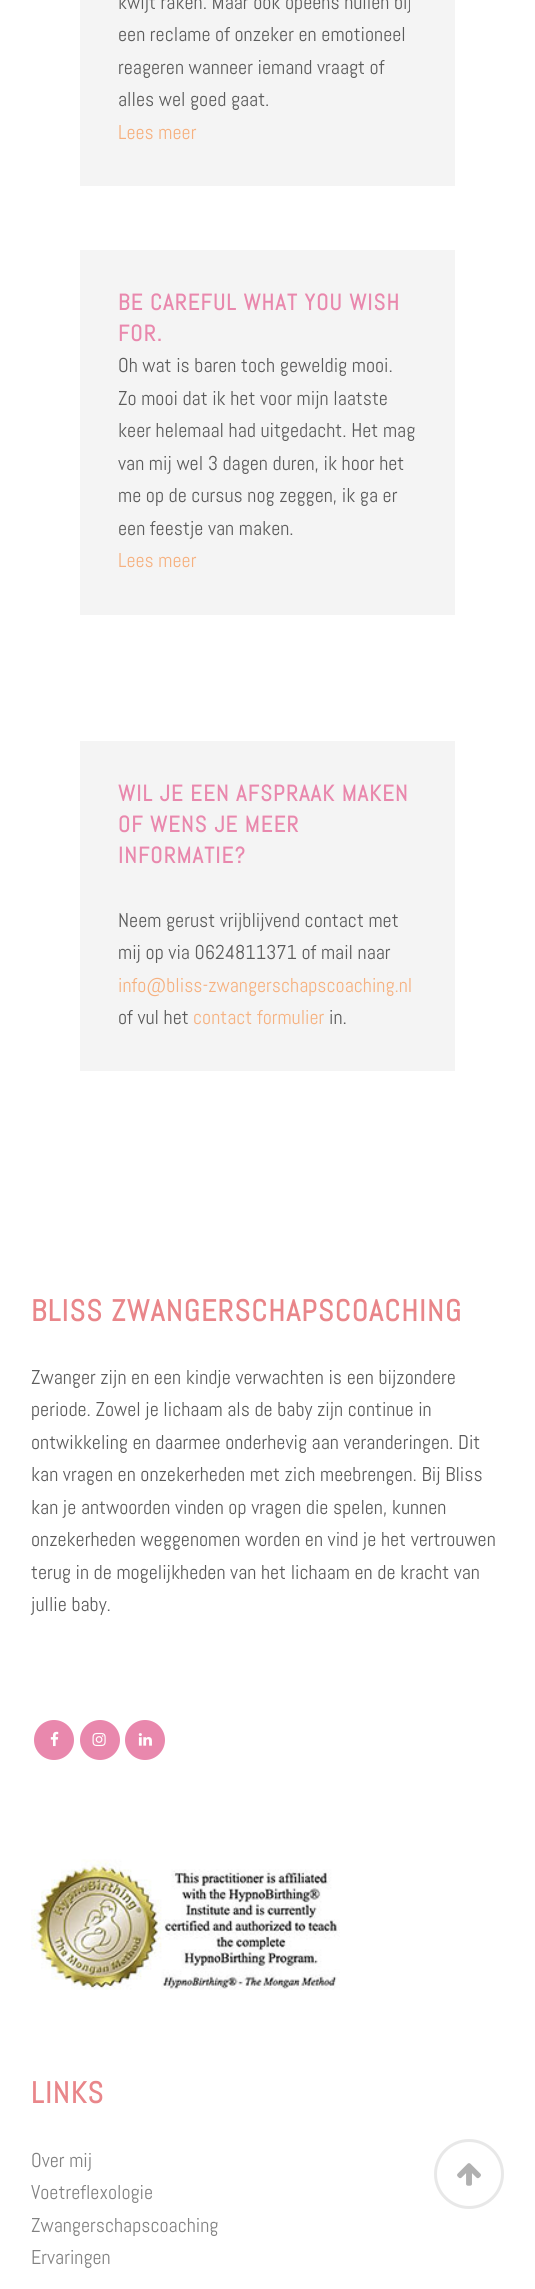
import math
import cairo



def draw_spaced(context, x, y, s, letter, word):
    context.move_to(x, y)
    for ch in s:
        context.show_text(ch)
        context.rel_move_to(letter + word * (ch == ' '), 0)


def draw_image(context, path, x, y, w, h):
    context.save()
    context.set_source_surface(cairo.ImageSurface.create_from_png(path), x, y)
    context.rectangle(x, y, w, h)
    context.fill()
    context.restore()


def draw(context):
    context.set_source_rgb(1, 1, 1)
    context.paint()
    context.set_source_rgb(244 / 255, 244 / 255, 244 / 255)
    context.rectangle(80, 0, 375, 186)
    context.fill()
    context.rectangle(80, 250, 375, 365)
    context.fill()
    context.rectangle(80, 741, 375, 330)
    context.fill()
    context.set_source_rgb(233 / 255, 136 / 255, 173 / 255)
    context.arc(54, 1740, 20, 0, 2 * math.pi)
    context.fill()
    draw_image(context, "images/1.png", 50, 1731, 9, 16)
    context.arc(100, 1740, 20, 0, 2 * math.pi)
    context.fill()
    draw_image(context, "images/2.png", 92, 1732, 14, 15)
    context.arc(145, 1740, 20, 0, 2 * math.pi)
    context.fill()
    draw_image(context, "images/3.png", 138, 1733, 14, 13)
    draw_image(context, "images/4.png", 31, 1859, 309, 131)
    context.arc(469, 2174, 33.5, 0, 2 * math.pi)
    context.set_source_rgb(232 / 255, 232 / 255, 232 / 255)
    context.set_line_width(3)
    context.stroke()
    draw_image(context, "images/5.png", 457, 2163, 24, 23)
    context.select_font_face("Abel")
    context.set_font_size(20)
    context.set_source_rgb(91 / 255, 91 / 255, 91 / 255)
    context.move_to(118, 9)
    context.show_text("kwijt raken. Maar ook opeens huilen bij")
    context.move_to(118, 41)
    context.show_text("een reclame of onzeker en emotioneel")
    context.move_to(118, 74)
    context.show_text("reageren wanneer iemand vraagt of")
    context.move_to(118, 106)
    context.show_text("alles wel goed gaat.")
    context.set_source_rgb(246 / 255, 177 / 255, 128 / 255)
    context.move_to(118, 139)
    context.show_text("Lees meer")
    context.select_font_face("Abel", cairo.FontSlant.NORMAL, cairo.FontWeight.BOLD)
    context.set_font_size(22.5)
    context.set_source_rgb(233 / 255, 136 / 255, 173 / 255)
    draw_spaced(context, 118, 310, "BE CAREFUL WHAT YOU WISH", 1.25, 0)
    draw_spaced(context, 118, 341, "FOR.", 1.25, 0)
    context.select_font_face("Abel")
    context.set_font_size(20)
    context.set_source_rgb(91 / 255, 91 / 255, 91 / 255)
    context.move_to(118, 372)
    context.show_text("Oh wat is baren toch geweldig mooi.")
    context.move_to(118, 405)
    context.show_text("Zo mooi dat ik het voor mijn laatste")
    context.move_to(118, 437)
    context.show_text("keer helemaal had uitgedacht. Het mag")
    context.move_to(118, 470)
    context.show_text("van mij wel 3 dagen duren, ik hoor het")
    context.move_to(118, 502)
    context.show_text("me op de cursus nog zeggen, ik ga er")
    context.move_to(118, 535)
    context.show_text("een feestje van maken.")
    context.set_source_rgb(246 / 255, 177 / 255, 128 / 255)
    context.move_to(118, 567)
    context.show_text("Lees meer")
    context.select_font_face("Abel", cairo.FontSlant.NORMAL, cairo.FontWeight.BOLD)
    context.set_font_size(22.5)
    context.set_source_rgb(233 / 255, 136 / 255, 173 / 255)
    draw_spaced(context, 118, 801, "WIL JE EEN AFSPRAAK MAKEN", 1.25, 0)
    draw_spaced(context, 118, 832, "OF WENS JE MEER", 1.25, 0)
    draw_spaced(context, 118, 863, "INFORMATIE?", 1.25, 0)
    context.select_font_face("Abel")
    context.set_font_size(20)
    context.set_source_rgb(91 / 255, 91 / 255, 91 / 255)
    context.move_to(118, 927)
    context.show_text("Neem gerust vrijblijvend contact met")
    context.move_to(118, 959)
    context.show_text("mij op via 0624811371 of mail naar")
    context.set_source_rgb(246 / 255, 177 / 255, 128 / 255)
    context.move_to(118, 992)
    context.show_text("info@bliss-zwangerschapscoaching.nl")
    context.set_source_rgb(91 / 255, 91 / 255, 91 / 255)
    context.move_to(118, 1024)
    context.show_text("of vul het")
    context.set_source_rgb(246 / 255, 177 / 255, 128 / 255)
    context.move_to(193, 1024)
    context.show_text("contact formulier")
    context.set_source_rgb(91 / 255, 91 / 255, 91 / 255)
    context.move_to(329, 1024)
    context.show_text("in.")
    context.select_font_face("Abel", cairo.FontSlant.NORMAL, cairo.FontWeight.BOLD)
    context.set_font_size(30)
    context.set_source_rgb(233 / 255, 134 / 255, 138 / 255)
    draw_spaced(context, 31, 1321, "BLISS ZWANGERSCHAPSCOACHING", 1.25, 0)
    context.select_font_face("Abel")
    context.set_font_size(20)
    context.set_source_rgb(91 / 255, 91 / 255, 91 / 255)
    context.move_to(31, 1384)
    context.show_text("Zwanger zijn en een kindje verwachten is een bijzondere")
    context.move_to(31, 1416)
    context.show_text("periode. Zowel je lichaam als de baby zijn continue in")
    context.move_to(31, 1449)
    context.show_text("ontwikkeling en daarmee onderhevig aan veranderingen. Dit")
    context.move_to(31, 1481)
    context.show_text("kan vragen en onzekerheden met zich meebrengen. Bij Bliss")
    context.move_to(31, 1514)
    context.show_text("kan je antwoorden vinden op vragen die spelen, kunnen")
    context.move_to(31, 1546)
    context.show_text("onzekerheden weggenomen worden en vind je het vertrouwen")
    context.move_to(31, 1579)
    context.show_text("terug in de mogelijkheden van het lichaam en de kracht van")
    context.move_to(31, 1611)
    context.show_text("jullie baby.")
    context.select_font_face("Abel", cairo.FontSlant.NORMAL, cairo.FontWeight.BOLD)
    context.set_font_size(30)
    context.set_source_rgb(233 / 255, 134 / 255, 138 / 255)
    draw_spaced(context, 31, 2103, "LINKS", 1.25, 0)
    context.select_font_face("Abel")
    context.set_font_size(20)
    context.set_source_rgb(129 / 255, 129 / 255, 129 / 255)
    context.move_to(31, 2167)
    context.show_text("Over mij")
    context.move_to(31, 2199)
    context.show_text("Voetreflexologie")
    context.move_to(31, 2232)
    context.show_text("Zwangerschapscoaching")
    context.move_to(31, 2264)
    context.show_text("Ervaringen")


surface = cairo.ImageSurface(cairo.Format.RGB24, 535, 2289)
context = cairo.Context(surface)
options = cairo.FontOptions()
options.set_hint_metrics(cairo.HintMetrics.OFF)
options.set_hint_style(cairo.HintStyle.NONE)
context.set_font_options(options)
context.set_miter_limit(4)
draw(context)
surface.write_to_png("out.png")
